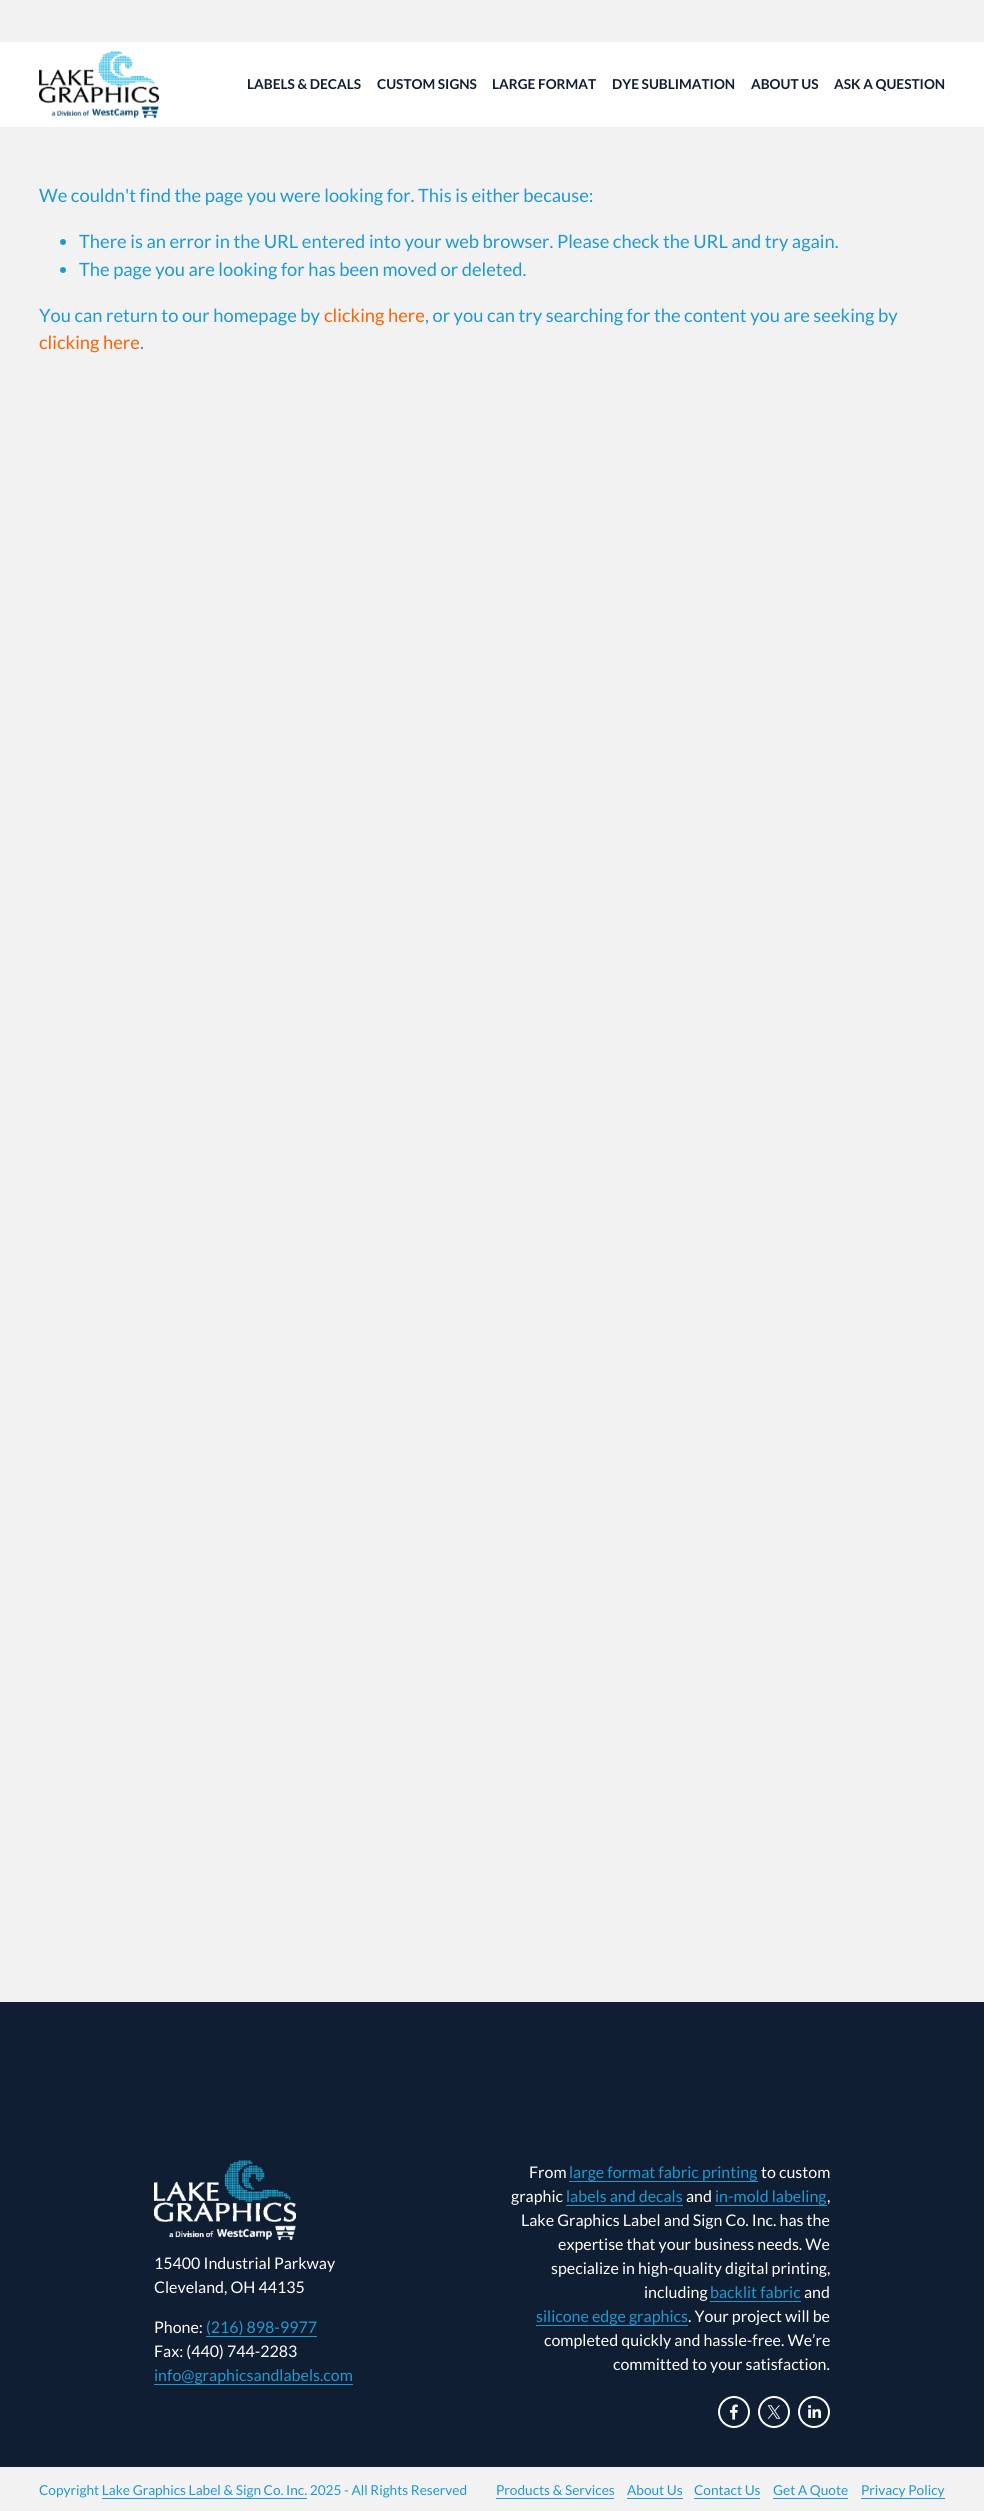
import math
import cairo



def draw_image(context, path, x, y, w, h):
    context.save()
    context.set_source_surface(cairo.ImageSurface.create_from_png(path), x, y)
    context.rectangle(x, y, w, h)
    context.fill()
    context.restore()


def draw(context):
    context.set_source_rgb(242 / 255, 242 / 255, 242 / 255)
    context.paint()
    context.set_source_rgb(1, 1, 1)
    context.rectangle(0, 42, 984, 85)
    context.fill()
    draw_image(context, "images/1.png", 39, 51, 121, 68)
    context.set_source_rgb(32 / 255, 153 / 255, 209 / 255)
    context.arc(63, 242, 3, 0, 2 * math.pi)
    context.fill()
    context.arc(63, 270, 3, 0, 2 * math.pi)
    context.fill()
    context.set_source_rgb(16 / 255, 30 / 255, 51 / 255)
    context.rectangle(0, 2002, 984, 465)
    context.fill()
    draw_image(context, "images/2.png", 154, 2160, 142, 80)
    context.set_source_rgb(32 / 255, 153 / 255, 209 / 255)
    context.rectangle(569, 2181, 189, 1)
    context.fill()
    context.rectangle(566, 2205, 117, 1)
    context.fill()
    context.rectangle(715, 2205, 112, 1)
    context.fill()
    context.rectangle(710, 2301, 91, 1)
    context.fill()
    context.rectangle(536, 2325, 152, 1)
    context.fill()
    context.rectangle(206, 2336, 111, 1)
    context.fill()
    context.rectangle(154, 2384, 199, 1)
    context.fill()
    context.arc(734, 2412, 15, 0, 2 * math.pi)
    context.set_source_rgb(1, 1, 1)
    context.stroke()
    draw_image(context, "images/3.png", 730, 2404, 8, 16)
    context.arc(774, 2412, 15, 0, 2 * math.pi)
    context.stroke()
    draw_image(context, "images/4.png", 767, 2405, 14, 14)
    context.arc(814, 2412, 15, 0, 2 * math.pi)
    context.stroke()
    draw_image(context, "images/5.png", 808, 2405, 13, 13)
    context.set_source_rgb(32 / 255, 153 / 255, 209 / 255)
    context.rectangle(102, 2498, 205, 1)
    context.fill()
    context.rectangle(496, 2498, 118, 1)
    context.fill()
    context.rectangle(627, 2498, 56, 1)
    context.fill()
    context.rectangle(694, 2498, 66, 1)
    context.fill()
    context.rectangle(773, 2498, 75, 1)
    context.fill()
    context.rectangle(861, 2498, 84, 1)
    context.fill()
    context.select_font_face("Lato", cairo.FontSlant.NORMAL, cairo.FontWeight.BOLD)
    context.set_font_size(13.65)
    context.set_source_rgb(16 / 255, 30 / 255, 51 / 255)
    context.move_to(247, 89)
    context.show_text("LABELS & DECALS")
    context.move_to(377, 89)
    context.show_text("CUSTOM SIGNS")
    context.move_to(492, 89)
    context.show_text("LARGE FORMAT")
    context.move_to(612, 89)
    context.show_text("DYE SUBLIMATION")
    context.move_to(751, 89)
    context.show_text("ABOUT US")
    context.move_to(834, 89)
    context.show_text("ASK A QUESTION")
    context.select_font_face("Lato")
    context.set_font_size(18.35)
    context.set_source_rgb(32 / 255, 153 / 255, 209 / 255)
    context.move_to(39, 202)
    context.show_text("We couldn't find the page you were looking for. This is either because:")
    context.move_to(79, 248)
    context.show_text("There is an error in the URL entered into your web browser. Please check the URL and try again.")
    context.move_to(79, 276)
    context.show_text("The page you are looking for has been moved or deleted.")
    context.move_to(39, 322)
    context.show_text("You can return to our homepage by")
    context.set_source_rgb(251 / 255, 98 / 255, 4 / 255)
    context.move_to(324, 322)
    context.show_text("clicking here")
    context.set_source_rgb(32 / 255, 153 / 255, 209 / 255)
    context.move_to(425, 322)
    context.show_text(", or you can try searching for the content you are seeking by")
    context.set_source_rgb(251 / 255, 98 / 255, 4 / 255)
    context.move_to(39, 349)
    context.show_text("clicking here")
    context.set_source_rgb(32 / 255, 153 / 255, 209 / 255)
    context.move_to(140, 349)
    context.show_text(".")
    context.set_font_size(16)
    context.set_source_rgb(1, 1, 1)
    context.move_to(529, 2178)
    context.show_text("From")
    context.set_source_rgb(32 / 255, 153 / 255, 209 / 255)
    context.move_to(569, 2178)
    context.show_text("large format fabric printing")
    context.set_source_rgb(1, 1, 1)
    context.move_to(761, 2178)
    context.show_text("to custom")
    context.move_to(511, 2202)
    context.show_text("graphic")
    context.set_source_rgb(32 / 255, 153 / 255, 209 / 255)
    context.move_to(566, 2202)
    context.show_text("labels and decals")
    context.set_source_rgb(1, 1, 1)
    context.move_to(686, 2202)
    context.show_text("and")
    context.set_source_rgb(32 / 255, 153 / 255, 209 / 255)
    context.move_to(715, 2202)
    context.show_text("in-mold labeling")
    context.set_source_rgb(1, 1, 1)
    context.move_to(827, 2202)
    context.show_text(",")
    context.move_to(521, 2226)
    context.show_text("Lake Graphics Label and Sign Co. Inc. has the")
    context.move_to(558, 2250)
    context.show_text("expertise that your business needs. We")
    context.move_to(551, 2274)
    context.show_text("specialize in high-quality digital printing,")
    context.move_to(644, 2298)
    context.show_text("including")
    context.set_source_rgb(32 / 255, 153 / 255, 209 / 255)
    context.move_to(710, 2298)
    context.show_text("backlit fabric")
    context.set_source_rgb(1, 1, 1)
    context.move_to(804, 2298)
    context.show_text("and")
    context.set_source_rgb(32 / 255, 153 / 255, 209 / 255)
    context.move_to(536, 2322)
    context.show_text("silicone edge graphics")
    context.set_source_rgb(1, 1, 1)
    context.move_to(688, 2322)
    context.show_text(". Your project will be")
    context.move_to(544, 2346)
    context.show_text("completed quickly and hassle-free. We’re")
    context.move_to(613, 2370)
    context.show_text("committed to your satisfaction.")
    context.move_to(154, 2269)
    context.show_text("15400 Industrial Parkway")
    context.move_to(154, 2293)
    context.show_text("Cleveland, OH 44135")
    context.move_to(154, 2333)
    context.show_text("Phone:")
    context.set_source_rgb(32 / 255, 153 / 255, 209 / 255)
    context.move_to(206, 2333)
    context.show_text("(216) 898-9977")
    context.set_source_rgb(1, 1, 1)
    context.move_to(154, 2357)
    context.show_text("Fax: (440) 744-2283")
    context.set_source_rgb(32 / 255, 153 / 255, 209 / 255)
    context.move_to(154, 2381)
    context.show_text("info@graphicsandlabels.com")
    context.set_font_size(13.65)
    context.move_to(39, 2495)
    context.show_text("Copyright Lake Graphics Label & Sign Co. Inc. 2025 - All Rights Reserved")
    context.move_to(496, 2495)
    context.show_text("Products & Services")
    context.move_to(627, 2495)
    context.show_text("About Us")
    context.move_to(694, 2495)
    context.show_text("Contact Us")
    context.move_to(773, 2495)
    context.show_text("Get A Quote")
    context.move_to(861, 2495)
    context.show_text("Privacy Policy")


surface = cairo.ImageSurface(cairo.Format.RGB24, 984, 2511)
context = cairo.Context(surface)
options = cairo.FontOptions()
options.set_hint_metrics(cairo.HintMetrics.OFF)
options.set_hint_style(cairo.HintStyle.NONE)
context.set_font_options(options)
context.set_miter_limit(4)
draw(context)
surface.write_to_png("out.png")
